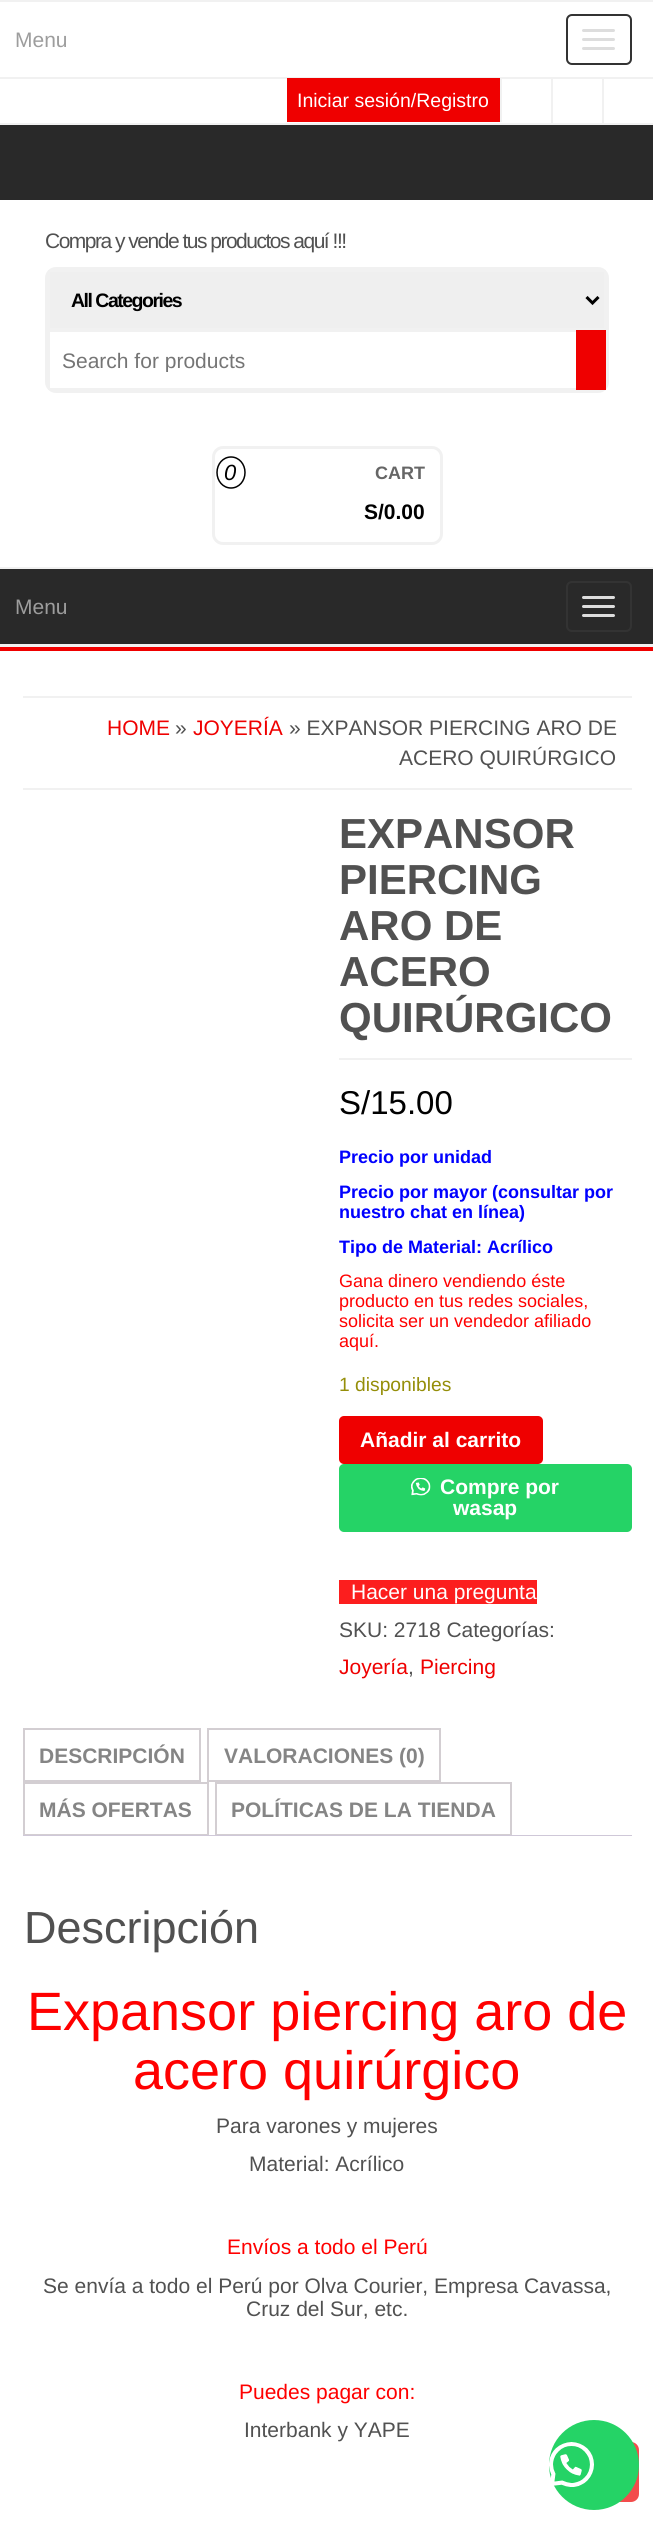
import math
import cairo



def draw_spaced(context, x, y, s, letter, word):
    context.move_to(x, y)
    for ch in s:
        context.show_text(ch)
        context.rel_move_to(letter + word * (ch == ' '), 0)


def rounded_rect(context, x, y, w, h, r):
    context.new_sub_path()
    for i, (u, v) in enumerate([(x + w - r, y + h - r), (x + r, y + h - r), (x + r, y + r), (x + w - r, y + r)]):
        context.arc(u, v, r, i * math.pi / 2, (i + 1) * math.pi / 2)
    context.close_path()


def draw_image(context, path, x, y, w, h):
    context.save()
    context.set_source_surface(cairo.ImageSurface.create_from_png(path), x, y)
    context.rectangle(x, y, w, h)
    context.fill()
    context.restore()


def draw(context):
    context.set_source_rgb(1, 1, 1)
    context.paint()
    context.set_source_rgb(239 / 255, 0, 0)
    context.rectangle(0, 647, 653, 4)
    context.fill()
    context.set_source_rgb(241 / 255, 241 / 255, 241 / 255)
    context.rectangle(0, 123, 653, 2)
    context.fill()
    context.rectangle(0, 0, 653, 2)
    context.fill()
    context.rectangle(0, 77, 653, 2)
    context.fill()
    rounded_rect(context, 567, 15, 64, 49, 5)
    context.set_source_rgb(51 / 255, 51 / 255, 51 / 255)
    context.stroke()
    context.set_source_rgb(221 / 255, 221 / 255, 221 / 255)
    rounded_rect(context, 582, 29, 33, 3, 1.5)
    context.fill()
    rounded_rect(context, 582, 38, 33, 3, 1.5)
    context.fill()
    rounded_rect(context, 582, 47, 33, 3, 1.5)
    context.fill()
    context.set_source_rgb(239 / 255, 0, 0)
    context.rectangle(287, 78, 213, 44)
    context.fill()
    context.set_source_rgb(241 / 255, 241 / 255, 241 / 255)
    context.rectangle(500, 78, 2, 44)
    context.fill()
    context.rectangle(551, 78, 2, 45)
    context.fill()
    context.rectangle(602, 78, 2, 45)
    context.fill()
    context.set_source_rgb(41 / 255, 41 / 255, 41 / 255)
    context.rectangle(0, 125, 653, 519)
    context.fill()
    context.set_source_rgb(241 / 255, 241 / 255, 241 / 255)
    context.rectangle(0, 644, 653, 3)
    context.fill()
    context.set_source_rgb(1, 1, 1)
    context.rectangle(0, 200, 653, 367)
    context.fill()
    rounded_rect(context, 46.5, 268.5, 561, 123, 9.5)
    context.set_source_rgb(241 / 255, 241 / 255, 241 / 255)
    context.set_line_width(3)
    context.stroke()
    context.set_source_rgb(239 / 255, 239 / 255, 239 / 255)
    context.rectangle(49, 271, 556, 58)
    context.fill_preserve()
    context.set_source_rgb(241 / 255, 241 / 255, 241 / 255)
    context.set_line_width(2)
    context.stroke()
    context.new_path()
    context.move_to(586.5, 297)
    context.line_to(592.5, 303)
    context.line_to(598.5, 297)
    context.set_source_rgb(0, 0, 0)
    context.set_line_width(3)
    context.stroke()
    context.set_source_rgb(1, 1, 1)
    context.rectangle(50, 387, 1, 1)
    context.fill()
    context.rectangle(49, 331, 556, 58)
    context.set_source_rgb(241 / 255, 241 / 255, 241 / 255)
    context.set_line_width(2)
    context.stroke()
    context.set_source_rgb(239 / 255, 0, 0)
    context.rectangle(576, 330, 30, 60)
    context.fill()
    rounded_rect(context, 213.5, 447.5, 228, 96, 9.5)
    context.set_source_rgb(241 / 255, 241 / 255, 241 / 255)
    context.set_line_width(3)
    context.stroke()
    context.new_path()
    context.move_to(231, 457)
    context.curve_to(239, 457, 245, 464, 245, 472.5)
    context.curve_to(245, 481, 239, 488, 231, 488)
    context.curve_to(223, 488, 217, 481, 217, 472.5)
    context.curve_to(217, 464, 223, 457, 231, 457)
    context.close_path()
    context.set_source_rgb(0, 0, 0)
    context.set_line_width(1.5)
    context.stroke()
    context.set_source_rgb(241 / 255, 241 / 255, 241 / 255)
    context.rectangle(0, 567, 653, 2)
    context.fill()
    rounded_rect(context, 567, 582, 64, 49, 5)
    context.set_source_rgb(51 / 255, 51 / 255, 51 / 255)
    context.set_line_width(2)
    context.stroke()
    context.set_source_rgb(221 / 255, 221 / 255, 221 / 255)
    rounded_rect(context, 582, 596, 33, 3, 1.5)
    context.fill()
    rounded_rect(context, 582, 605, 33, 3, 1.5)
    context.fill()
    rounded_rect(context, 582, 614, 33, 3, 1.5)
    context.fill()
    context.set_source_rgb(241 / 255, 241 / 255, 241 / 255)
    context.rectangle(23, 696, 609, 2)
    context.fill()
    context.rectangle(23, 788, 609, 2)
    context.fill()
    context.rectangle(339, 1058, 293, 2)
    context.fill()
    context.set_source_rgb(239 / 255, 0, 0)
    rounded_rect(context, 339, 1416, 204, 48, 5)
    context.fill()
    context.set_source_rgb(37 / 255, 211 / 255, 102 / 255)
    rounded_rect(context, 339, 1464, 293, 68, 5)
    context.fill()
    draw_image(context, "images/1.png", 411, 1478, 20, 18)
    context.set_source_rgb(252 / 255, 30 / 255, 30 / 255)
    context.rectangle(339, 1580, 198, 24)
    context.fill()
    context.rectangle(24, 1729, 176, 52)
    context.set_source_rgb(211 / 255, 206 / 255, 210 / 255)
    context.stroke()
    context.rectangle(208, 1729, 232, 52)
    context.stroke()
    context.rectangle(24, 1783, 184, 52)
    context.stroke()
    context.rectangle(216, 1783, 295, 52)
    context.stroke()
    context.set_source_rgb(207 / 255, 200 / 255, 216 / 255)
    context.rectangle(23, 1835, 609, 1)
    context.fill()
    context.set_source_rgba(239 / 255, 0, 0, 0.7)
    rounded_rect(context, 579, 2442, 60, 60, 8)
    context.fill()
    context.set_source_rgb(37 / 255, 211 / 255, 102 / 255)
    context.arc(594, 2465, 45, 0, 2 * math.pi)
    context.fill()
    draw_image(context, "images/2.png", 549, 2442, 45, 45)
    context.select_font_face("Liberation Sans")
    context.set_font_size(21)
    context.set_source_rgb(157 / 255, 157 / 255, 157 / 255)
    context.move_to(15, 47)
    context.show_text("Menu")
    context.set_font_size(19.5)
    context.set_source_rgb(1, 1, 1)
    context.move_to(297, 107)
    context.show_text("Iniciar sesión/Registro")
    context.set_font_size(21)
    context.set_source_rgb(81 / 255, 81 / 255, 81 / 255)
    draw_spaced(context, 45, 248, "Compra y vende tus productos aquí !!!", -1.5, 0)
    context.select_font_face("Liberation Sans", cairo.FontSlant.NORMAL, cairo.FontWeight.BOLD)
    context.set_font_size(19.5)
    context.set_source_rgb(0, 0, 0)
    draw_spaced(context, 71, 307, "All Categories", -1.5, 0)
    context.save()
    context.rectangle(62, 348, 531, 24)
    context.clip()
    context.select_font_face("Liberation Sans")
    context.set_font_size(21)
    context.set_source_rgb(117 / 255, 117 / 255, 117 / 255)
    context.move_to(62, 368)
    context.show_text("Search for products")
    context.restore()
    context.select_font_face("Liberation Sans", cairo.FontSlant.ITALIC)
    context.set_font_size(22)
    context.move_to(224, 480)
    context.show_text("0")
    context.select_font_face("Liberation Sans", cairo.FontSlant.NORMAL, cairo.FontWeight.BOLD)
    context.set_font_size(18)
    context.set_source_rgb(102 / 255, 102 / 255, 102 / 255)
    context.move_to(375, 479)
    context.show_text("CART")
    context.set_font_size(21)
    context.set_source_rgb(0, 0, 0)
    context.move_to(364, 519)
    context.show_text("S/0.00")
    context.select_font_face("Liberation Sans")
    context.set_source_rgb(157 / 255, 157 / 255, 157 / 255)
    context.move_to(15, 614)
    context.show_text("Menu")
    context.set_source_rgb(239 / 255, 0, 0)
    context.move_to(107, 735)
    context.show_text("HOME")
    context.set_source_rgb(81 / 255, 81 / 255, 81 / 255)
    context.move_to(175, 735)
    context.show_text("»")
    context.set_source_rgb(239 / 255, 0, 0)
    context.move_to(193, 735)
    context.show_text("JOYERÍA")
    context.set_source_rgb(81 / 255, 81 / 255, 81 / 255)
    context.move_to(289, 735)
    context.show_text("» EXPANSOR PIERCING ARO DE")
    context.move_to(399, 765)
    context.show_text("ACERO QUIRÚRGICO")
    context.select_font_face("Liberation Sans", cairo.FontSlant.NORMAL, cairo.FontWeight.BOLD)
    context.set_font_size(42)
    context.move_to(339, 848)
    context.show_text("EXPANSOR")
    context.move_to(339, 894)
    context.show_text("PIERCING")
    context.move_to(339, 940)
    context.show_text("ARO DE")
    context.move_to(339, 986)
    context.show_text("ACERO")
    context.move_to(339, 1032)
    context.show_text("QUIRÚRGICO")
    context.select_font_face("Liberation Sans")
    context.set_font_size(33)
    context.set_source_rgb(0, 0, 0)
    context.move_to(339, 1114)
    context.show_text("S/15.00")
    context.select_font_face("Liberation Sans", cairo.FontSlant.NORMAL, cairo.FontWeight.BOLD)
    context.set_font_size(18)
    context.set_source_rgb(0, 0, 1)
    context.move_to(339, 1163)
    context.show_text("Precio por unidad")
    context.move_to(339, 1198)
    context.show_text("Precio por mayor (consultar por")
    context.move_to(339, 1218)
    context.show_text("nuestro chat en línea)")
    context.move_to(339, 1253)
    context.show_text("Tipo de Material: Acrílico")
    context.select_font_face("Liberation Sans")
    context.set_source_rgb(1, 0, 0)
    context.move_to(339, 1287)
    context.show_text("Gana dinero vendiendo éste")
    context.move_to(339, 1307)
    context.show_text("producto en tus redes sociales,")
    context.move_to(339, 1327)
    context.show_text("solicita ser un vendedor afiliado")
    context.move_to(339, 1347)
    context.show_text("aquí.")
    context.set_font_size(19.25)
    context.set_source_rgb(149 / 255, 142 / 255, 9 / 255)
    context.move_to(339, 1391)
    context.show_text("1 disponibles")
    context.select_font_face("Liberation Sans", cairo.FontSlant.NORMAL, cairo.FontWeight.BOLD)
    context.set_font_size(21)
    context.set_source_rgb(1, 1, 1)
    context.move_to(360, 1447)
    context.show_text("Añadir al carrito")
    context.move_to(440, 1494)
    context.show_text("Compre por")
    context.move_to(453, 1515)
    context.show_text("wasap")
    context.select_font_face("Liberation Sans")
    context.move_to(351, 1599)
    context.show_text("Hacer una pregunta")
    context.set_source_rgb(81 / 255, 81 / 255, 81 / 255)
    context.move_to(339, 1637)
    context.show_text("SKU: 2718 Categorías:")
    context.set_source_rgb(239 / 255, 0, 0)
    context.move_to(339, 1674)
    context.show_text("Joyería")
    context.set_source_rgb(81 / 255, 81 / 255, 81 / 255)
    context.move_to(408, 1674)
    context.show_text(",")
    context.set_source_rgb(239 / 255, 0, 0)
    context.move_to(420, 1674)
    context.show_text("Piercing")
    context.select_font_face("Liberation Sans", cairo.FontSlant.NORMAL, cairo.FontWeight.BOLD)
    context.set_source_rgb(133 / 255, 133 / 255, 133 / 255)
    context.move_to(39, 1763)
    context.show_text("DESCRIPCIÓN")
    context.move_to(224, 1763)
    context.show_text("VALORACIONES (0)")
    context.move_to(39, 1817)
    context.show_text("MÁS OFERTAS")
    context.move_to(231, 1817)
    context.show_text("POLÍTICAS DE LA TIENDA")
    context.select_font_face("Liberation Sans")
    context.set_font_size(45)
    context.set_source_rgb(81 / 255, 81 / 255, 81 / 255)
    context.move_to(24, 1943)
    context.show_text("Descripción")
    context.set_font_size(54)
    context.set_source_rgb(1, 0, 0)
    context.move_to(27, 2030)
    context.show_text("Expansor piercing aro de")
    context.move_to(133, 2089)
    context.show_text("acero quirúrgico")
    context.set_font_size(21)
    context.set_source_rgb(81 / 255, 81 / 255, 81 / 255)
    context.move_to(216, 2133)
    context.show_text("Para varones y mujeres")
    context.move_to(249, 2171)
    context.show_text("Material: Acrílico")
    context.set_source_rgb(1, 0, 0)
    context.move_to(227, 2254)
    context.show_text("Envíos a todo el Perú")
    context.set_source_rgb(81 / 255, 81 / 255, 81 / 255)
    context.move_to(43, 2293)
    context.show_text("Se envía a todo el Perú por Olva Courier, Empresa Cavassa,")
    context.move_to(246, 2316)
    context.show_text("Cruz del Sur, etc.")
    context.set_source_rgb(1, 0, 0)
    context.move_to(239, 2399)
    context.show_text("Puedes pagar con:")
    context.set_source_rgb(81 / 255, 81 / 255, 81 / 255)
    context.move_to(244, 2437)
    context.show_text("Interbank y YAPE")


surface = cairo.ImageSurface(cairo.Format.RGB24, 653, 2524)
context = cairo.Context(surface)
options = cairo.FontOptions()
options.set_hint_metrics(cairo.HintMetrics.OFF)
options.set_hint_style(cairo.HintStyle.NONE)
context.set_font_options(options)
context.set_miter_limit(4)
draw(context)
surface.write_to_png("out.png")
